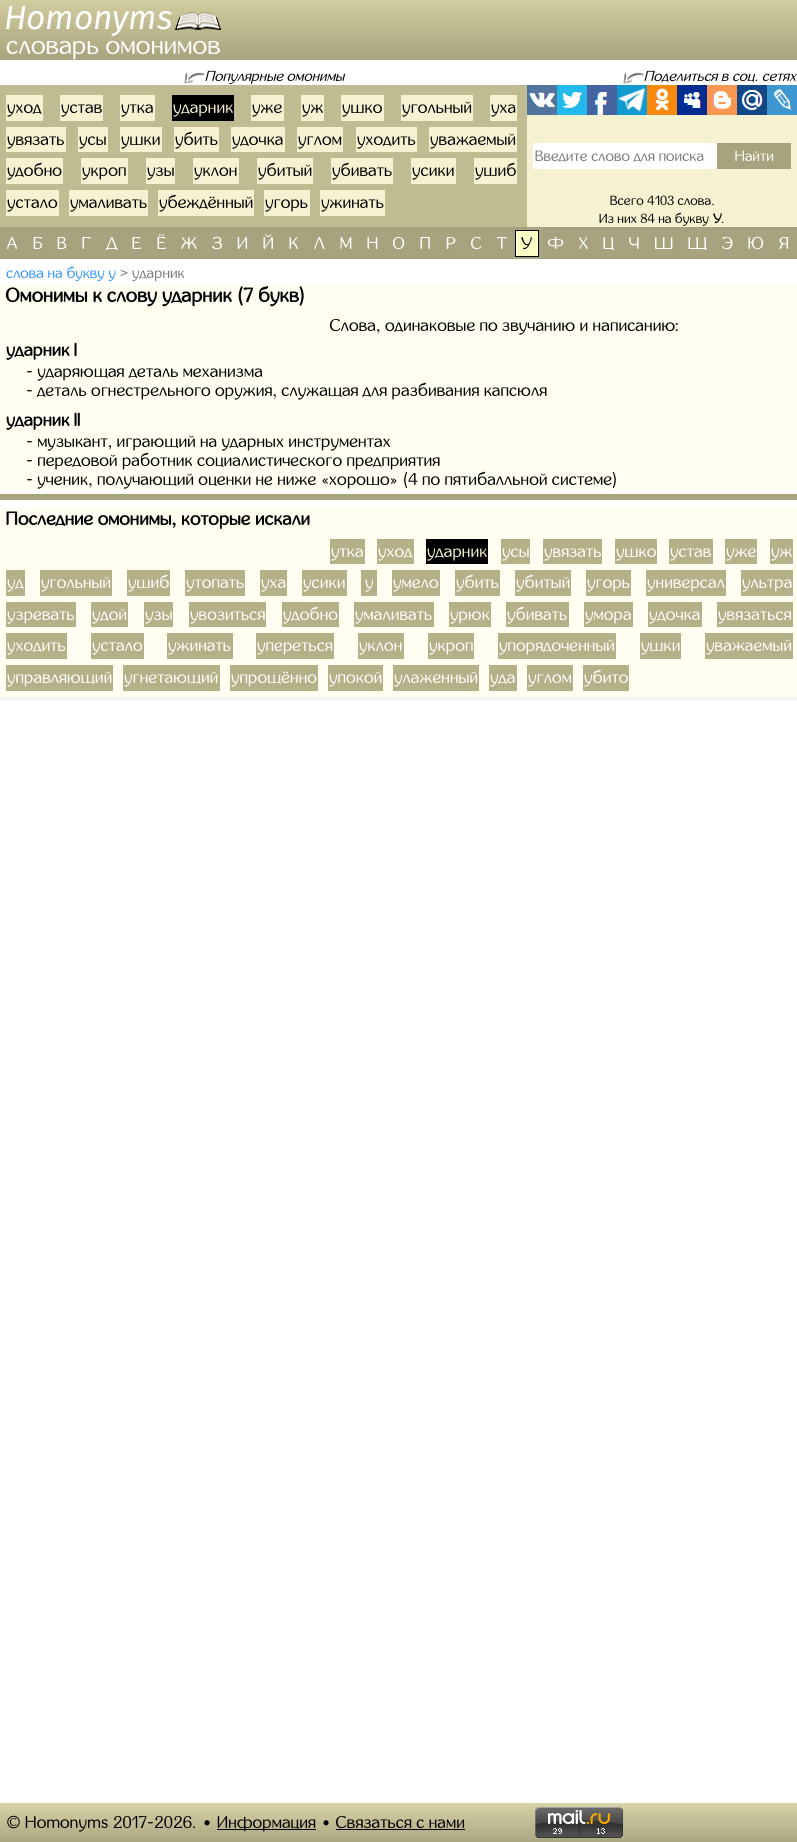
import math
import cairo



def draw_image(context, path, x, y, w, h):
    context.save()
    context.set_source_surface(cairo.ImageSurface.create_from_png(path), x, y)
    context.rectangle(x, y, w, h)
    context.fill()
    context.restore()


def draw(context):
    context.set_source_rgb(1, 1, 1)
    context.paint()
    gradient = cairo.LinearGradient(399, 60, 399, 0)
    gradient.add_color_stop_rgba(0, 167 / 255, 163 / 255, 126 / 255, 1)
    gradient.add_color_stop_rgba(1, 210 / 255, 205 / 255, 159 / 255, 1)
    context.set_source(gradient)
    context.rectangle(0, 0, 797, 60)
    context.fill()
    draw_image(context, "images/1.png", 6, 6, 216, 31)
    draw_image(context, "images/2.png", 184, 72, 21, 12)
    draw_image(context, "images/2.png", 623, 72, 21, 12)
    context.set_source_rgb(192 / 255, 188 / 255, 145 / 255)
    context.rectangle(0, 85, 527, 142)
    context.fill()
    context.set_source_rgb(245 / 255, 242 / 255, 209 / 255)
    context.rectangle(6, 95, 37, 26)
    context.fill()
    context.rectangle(60, 95, 43, 26)
    context.fill()
    context.rectangle(120, 95, 35, 26)
    context.fill()
    context.set_source_rgb(0, 0, 0)
    context.rectangle(172, 95, 62, 26)
    context.fill()
    context.set_source_rgb(245 / 255, 242 / 255, 209 / 255)
    context.rectangle(251, 95, 33, 26)
    context.fill()
    context.rectangle(301, 95, 23, 26)
    context.fill()
    context.rectangle(341, 95, 43, 26)
    context.fill()
    context.rectangle(401, 95, 72, 26)
    context.fill()
    context.rectangle(490, 95, 27, 26)
    context.fill()
    context.rectangle(6, 127, 60, 25)
    context.fill()
    context.rectangle(78, 127, 30, 25)
    context.fill()
    context.rectangle(120, 127, 42, 25)
    context.fill()
    context.rectangle(174, 127, 45, 25)
    context.fill()
    context.rectangle(231, 127, 54, 25)
    context.fill()
    context.rectangle(297, 127, 46, 25)
    context.fill()
    context.rectangle(356, 127, 61, 25)
    context.fill()
    context.rectangle(429, 127, 88, 25)
    context.fill()
    context.rectangle(6, 158, 57, 26)
    context.fill()
    context.rectangle(81, 158, 47, 26)
    context.fill()
    context.rectangle(146, 158, 29, 26)
    context.fill()
    context.rectangle(193, 158, 46, 26)
    context.fill()
    context.rectangle(257, 158, 56, 26)
    context.fill()
    context.rectangle(331, 158, 62, 26)
    context.fill()
    context.rectangle(411, 158, 45, 26)
    context.fill()
    context.rectangle(474, 158, 43, 26)
    context.fill()
    context.rectangle(6, 190, 53, 26)
    context.fill()
    context.rectangle(69, 190, 79, 26)
    context.fill()
    context.rectangle(158, 190, 96, 26)
    context.fill()
    context.rectangle(264, 190, 46, 26)
    context.fill()
    context.rectangle(320, 190, 65, 26)
    context.fill()
    context.rectangle(527, 115, 270, 112)
    context.fill()
    draw_image(context, "images/3.png", 527, 85, 30, 30)
    draw_image(context, "images/4.png", 557, 85, 30, 30)
    draw_image(context, "images/5.png", 587, 85, 30, 30)
    context.set_source_rgb(19 / 255, 155 / 255, 208 / 255)
    context.rectangle(617, 85, 30, 30)
    context.fill()
    draw_image(context, "images/6.png", 618, 85, 28, 27)
    draw_image(context, "images/7.png", 647, 85, 30, 30)
    draw_image(context, "images/8.png", 677, 85, 30, 30)
    draw_image(context, "images/9.png", 707, 85, 30, 30)
    draw_image(context, "images/10.png", 737, 85, 30, 30)
    draw_image(context, "images/11.png", 767, 85, 30, 30)
    context.set_source_rgb(1, 1, 1)
    context.rectangle(533, 143, 184, 26)
    context.fill()
    context.set_source_rgb(167 / 255, 163 / 255, 126 / 255)
    context.rectangle(717, 143, 74, 26)
    context.fill()
    context.rectangle(0, 227, 797, 32)
    context.fill()
    context.rectangle(515.5, 230.5, 23, 26)
    context.set_source_rgb(0, 0, 0)
    context.set_line_width(1)
    context.stroke()
    context.set_source_rgb(250 / 255, 1, 198 / 255)
    context.rectangle(516, 231, 22, 25)
    context.fill()
    context.set_source_rgb(1, 254 / 255, 240 / 255)
    context.rectangle(0, 285, 797, 204)
    context.fill()
    context.set_source_rgb(167 / 255, 163 / 255, 126 / 255)
    context.rectangle(0, 494, 797, 6)
    context.fill()
    context.set_source_rgb(250 / 255, 250 / 255, 250 / 255)
    context.rectangle(0, 701, 797, 1)
    context.fill()
    context.set_source_rgb(248 / 255, 248 / 255, 248 / 255)
    context.rectangle(0, 700, 797, 1)
    context.fill()
    context.set_source_rgb(246 / 255, 246 / 255, 246 / 255)
    context.rectangle(0, 699, 797, 1)
    context.fill()
    context.set_source_rgb(244 / 255, 244 / 255, 244 / 255)
    context.rectangle(0, 698, 797, 1)
    context.fill()
    context.set_source_rgb(242 / 255, 242 / 255, 242 / 255)
    context.rectangle(0, 697, 797, 1)
    context.fill()
    context.set_source_rgb(1, 254 / 255, 240 / 255)
    context.rectangle(0, 508, 797, 189)
    context.fill()
    context.set_source_rgb(180 / 255, 176 / 255, 136 / 255)
    context.rectangle(330, 539, 35, 25)
    context.fill()
    context.rectangle(377, 539, 37, 25)
    context.fill()
    context.set_source_rgb(0, 0, 0)
    context.rectangle(426, 539, 62, 25)
    context.fill()
    context.set_source_rgb(180 / 255, 176 / 255, 136 / 255)
    context.rectangle(501, 539, 29, 25)
    context.fill()
    context.rectangle(543, 539, 59, 25)
    context.fill()
    context.rectangle(615, 539, 42, 25)
    context.fill()
    context.rectangle(669, 539, 44, 25)
    context.fill()
    context.rectangle(725, 539, 32, 25)
    context.fill()
    context.rectangle(770, 539, 23, 25)
    context.fill()
    context.rectangle(6, 570, 19, 26)
    context.fill()
    context.rectangle(40, 570, 72, 26)
    context.fill()
    context.rectangle(127, 570, 43, 26)
    context.fill()
    context.rectangle(185, 570, 60, 26)
    context.fill()
    context.rectangle(260, 570, 27, 26)
    context.fill()
    context.rectangle(302, 570, 45, 26)
    context.fill()
    context.rectangle(361, 570, 16, 26)
    context.fill()
    context.rectangle(392, 570, 48, 26)
    context.fill()
    context.rectangle(455, 570, 45, 26)
    context.fill()
    context.rectangle(515, 570, 56, 26)
    context.fill()
    context.rectangle(586, 570, 45, 26)
    context.fill()
    context.rectangle(646, 570, 80, 26)
    context.fill()
    context.rectangle(741, 570, 52, 26)
    context.fill()
    context.rectangle(6, 602, 70, 25)
    context.fill()
    context.rectangle(91, 602, 37, 25)
    context.fill()
    context.rectangle(144, 602, 29, 25)
    context.fill()
    context.rectangle(189, 602, 77, 25)
    context.fill()
    context.rectangle(282, 602, 57, 25)
    context.fill()
    context.rectangle(354, 602, 80, 25)
    context.fill()
    context.rectangle(449, 602, 42, 25)
    context.fill()
    context.rectangle(506, 602, 63, 25)
    context.fill()
    context.rectangle(584, 602, 49, 25)
    context.fill()
    context.rectangle(648, 602, 54, 25)
    context.fill()
    context.rectangle(717, 602, 76, 25)
    context.fill()
    context.rectangle(6, 633, 61, 26)
    context.fill()
    context.rectangle(91, 633, 53, 26)
    context.fill()
    context.rectangle(167, 633, 66, 26)
    context.fill()
    context.rectangle(256, 633, 78, 26)
    context.fill()
    context.rectangle(358, 633, 46, 26)
    context.fill()
    context.rectangle(428, 633, 46, 26)
    context.fill()
    context.rectangle(498, 633, 118, 26)
    context.fill()
    context.rectangle(640, 633, 41, 26)
    context.fill()
    context.rectangle(705, 633, 88, 26)
    context.fill()
    context.rectangle(6, 665, 107, 26)
    context.fill()
    context.rectangle(123, 665, 97, 26)
    context.fill()
    context.rectangle(230, 665, 88, 26)
    context.fill()
    context.rectangle(328, 665, 55, 26)
    context.fill()
    context.rectangle(393, 665, 86, 26)
    context.fill()
    context.rectangle(489, 665, 28, 26)
    context.fill()
    context.rectangle(527, 665, 46, 26)
    context.fill()
    context.rectangle(583, 665, 46, 26)
    context.fill()
    gradient = cairo.LinearGradient(399, 1842, 399, 1803)
    gradient.add_color_stop_rgba(0, 170 / 255, 166 / 255, 128 / 255, 1)
    gradient.add_color_stop_rgba(1, 216 / 255, 211 / 255, 168 / 255, 1)
    context.set_source(gradient)
    context.rectangle(0, 1803, 797, 39)
    context.fill()
    context.set_source_rgb(0, 0, 0)
    context.rectangle(217, 1829, 99, 1)
    context.fill()
    context.rectangle(336, 1829, 129, 1)
    context.fill()
    draw_image(context, "images/12.png", 535, 1807, 88, 31)
    context.select_font_face("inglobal")
    context.set_font_size(26)
    context.set_source_rgb(1, 1, 1)
    context.move_to(6, 54)
    context.show_text("словарь омонимов")
    context.select_font_face("inglobal", cairo.FontSlant.ITALIC)
    context.set_font_size(14.5)
    context.set_source_rgb(0, 0, 0)
    context.move_to(205, 81)
    context.show_text("Популярные омонимы")
    context.move_to(644, 81)
    context.show_text("Поделиться в соц. сетях")
    context.select_font_face("inglobal")
    context.set_font_size(17.1)
    context.move_to(7, 113)
    context.show_text("уход")
    context.move_to(61, 113)
    context.show_text("устав")
    context.move_to(121, 113)
    context.show_text("утка")
    context.set_source_rgb(245 / 255, 242 / 255, 209 / 255)
    context.move_to(173, 113)
    context.show_text("ударник")
    context.set_source_rgb(0, 0, 0)
    context.move_to(252, 113)
    context.show_text("уже")
    context.move_to(302, 113)
    context.show_text("уж")
    context.move_to(342, 113)
    context.show_text("ушко")
    context.move_to(402, 113)
    context.show_text("угольный")
    context.move_to(491, 113)
    context.show_text("уха")
    context.move_to(7, 145)
    context.show_text("увязать")
    context.move_to(79, 145)
    context.show_text("усы")
    context.move_to(121, 145)
    context.show_text("ушки")
    context.move_to(175, 145)
    context.show_text("убить")
    context.move_to(232, 145)
    context.show_text("удочка")
    context.move_to(298, 145)
    context.show_text("углом")
    context.move_to(357, 145)
    context.show_text("уходить")
    context.move_to(430, 145)
    context.show_text("уважаемый")
    context.move_to(7, 176)
    context.show_text("удобно")
    context.move_to(82, 176)
    context.show_text("укроп")
    context.move_to(147, 176)
    context.show_text("узы")
    context.move_to(194, 176)
    context.show_text("уклон")
    context.move_to(258, 176)
    context.show_text("убитый")
    context.move_to(332, 176)
    context.show_text("убивать")
    context.move_to(412, 176)
    context.show_text("усики")
    context.move_to(475, 176)
    context.show_text("ушиб")
    context.move_to(7, 208)
    context.show_text("устало")
    context.move_to(70, 208)
    context.show_text("умаливать")
    context.move_to(159, 208)
    context.show_text("убеждённый")
    context.move_to(265, 208)
    context.show_text("угорь")
    context.move_to(321, 208)
    context.show_text("ужинать")
    context.set_font_size(14.9)
    context.set_source_rgb(121 / 255, 121 / 255, 121 / 255)
    context.move_to(535, 161)
    context.show_text("Введите слово для поиска")
    context.set_source_rgb(1, 1, 1)
    context.move_to(735, 161)
    context.show_text("Найти")
    context.set_font_size(13.25)
    context.set_source_rgb(0, 0, 0)
    context.move_to(610, 205)
    context.show_text("Всего 4103 слова.")
    context.move_to(599, 223)
    context.show_text("Из них 84 на букву")
    context.select_font_face("inglobal", cairo.FontSlant.NORMAL, cairo.FontWeight.BOLD)
    context.move_to(713, 223)
    context.show_text("У")
    context.select_font_face("inglobal")
    context.move_to(721, 223)
    context.show_text(".")
    context.set_font_size(17.1)
    context.set_source_rgb(1, 1, 1)
    context.move_to(7, 249)
    context.show_text("А")
    context.move_to(33, 249)
    context.show_text("Б")
    context.move_to(57, 249)
    context.show_text("В")
    context.move_to(82, 249)
    context.show_text("Г")
    context.move_to(106, 249)
    context.show_text("Д")
    context.move_to(132, 249)
    context.show_text("Е")
    context.move_to(157, 249)
    context.show_text("Ё")
    context.move_to(181, 249)
    context.show_text("Ж")
    context.move_to(212, 249)
    context.show_text("З")
    context.move_to(237, 249)
    context.show_text("И")
    context.move_to(263, 249)
    context.show_text("Й")
    context.move_to(289, 249)
    context.show_text("К")
    context.move_to(314, 249)
    context.show_text("Л")
    context.move_to(340, 249)
    context.show_text("М")
    context.move_to(367, 249)
    context.show_text("Н")
    context.move_to(393, 249)
    context.show_text("О")
    context.move_to(420, 249)
    context.show_text("П")
    context.move_to(446, 249)
    context.show_text("Р")
    context.move_to(471, 249)
    context.show_text("С")
    context.move_to(497, 249)
    context.show_text("Т")
    context.set_source_rgb(0, 0, 0)
    context.move_to(521, 249)
    context.show_text("У")
    context.set_source_rgb(1, 1, 1)
    context.move_to(548, 249)
    context.show_text("Ф")
    context.move_to(579, 249)
    context.show_text("Х")
    context.move_to(603, 249)
    context.show_text("Ц")
    context.move_to(629, 249)
    context.show_text("Ч")
    context.move_to(655, 249)
    context.show_text("Ш")
    context.move_to(688, 249)
    context.show_text("Щ")
    context.move_to(722, 249)
    context.show_text("Э")
    context.move_to(748, 249)
    context.show_text("Ю")
    context.move_to(779, 249)
    context.show_text("Я")
    context.set_font_size(14.9)
    context.set_source_rgb(48 / 255, 150 / 255, 1)
    context.move_to(6, 278)
    context.show_text("слова на букву у")
    context.set_source_rgb(121 / 255, 121 / 255, 121 / 255)
    context.move_to(120, 278)
    context.show_text(">")
    context.move_to(132, 278)
    context.show_text("ударник")
    context.select_font_face("inglobal", cairo.FontSlant.NORMAL, cairo.FontWeight.BOLD)
    context.set_font_size(19.8)
    context.set_source_rgb(0, 0, 0)
    context.move_to(6, 302)
    context.show_text("Омонимы к слову ударник (7 букв)")
    context.select_font_face("inglobal")
    context.set_font_size(17.1)
    context.move_to(330, 331)
    context.show_text("Слова, одинаковые по звучанию и написанию:")
    context.select_font_face("inglobal", cairo.FontSlant.NORMAL, cairo.FontWeight.BOLD)
    context.set_font_size(18)
    context.move_to(6, 356)
    context.show_text("ударник I")
    context.select_font_face("inglobal")
    context.set_font_size(17.1)
    context.move_to(26, 377)
    context.show_text("- ударяющая деталь механизма")
    context.move_to(26, 396)
    context.show_text("- деталь огнестрельного оружия, служащая для разбивания капсюля")
    context.select_font_face("inglobal", cairo.FontSlant.NORMAL, cairo.FontWeight.BOLD)
    context.set_font_size(18)
    context.move_to(6, 426)
    context.show_text("ударник II")
    context.select_font_face("inglobal")
    context.set_font_size(17.1)
    context.move_to(26, 447)
    context.show_text("- музыкант, играющий на ударных инструментах")
    context.move_to(26, 466)
    context.show_text("- передовой работник социалистического предприятия")
    context.move_to(26, 485)
    context.show_text("- ученик, получающий оценки не ниже «хорошо» (4 по пятибалльной системе)")
    context.select_font_face("inglobal", cairo.FontSlant.NORMAL, cairo.FontWeight.BOLD)
    context.set_font_size(18.5)
    context.move_to(6, 525)
    context.show_text("Последние омонимы, которые искали")
    context.select_font_face("inglobal")
    context.set_font_size(17.1)
    context.set_source_rgb(1, 1, 1)
    context.move_to(331, 557)
    context.show_text("утка")
    context.move_to(378, 557)
    context.show_text("уход")
    context.set_source_rgb(245 / 255, 242 / 255, 209 / 255)
    context.move_to(427, 557)
    context.show_text("ударник")
    context.set_source_rgb(1, 1, 1)
    context.move_to(502, 557)
    context.show_text("усы")
    context.move_to(544, 557)
    context.show_text("увязать")
    context.move_to(616, 557)
    context.show_text("ушко")
    context.move_to(670, 557)
    context.show_text("устав")
    context.move_to(726, 557)
    context.show_text("уже")
    context.move_to(771, 557)
    context.show_text("уж")
    context.move_to(7, 588)
    context.show_text("уд")
    context.move_to(41, 588)
    context.show_text("угольный")
    context.move_to(128, 588)
    context.show_text("ушиб")
    context.move_to(186, 588)
    context.show_text("утопать")
    context.move_to(261, 588)
    context.show_text("уха")
    context.move_to(303, 588)
    context.show_text("усики")
    context.move_to(365, 588)
    context.show_text("у")
    context.move_to(393, 588)
    context.show_text("умело")
    context.move_to(456, 588)
    context.show_text("убить")
    context.move_to(516, 588)
    context.show_text("убитый")
    context.move_to(587, 588)
    context.show_text("угорь")
    context.move_to(647, 588)
    context.show_text("универсал")
    context.move_to(742, 588)
    context.show_text("ультра")
    context.move_to(7, 620)
    context.show_text("узревать")
    context.move_to(92, 620)
    context.show_text("удой")
    context.move_to(145, 620)
    context.show_text("узы")
    context.move_to(190, 620)
    context.show_text("увозиться")
    context.move_to(283, 620)
    context.show_text("удобно")
    context.move_to(355, 620)
    context.show_text("умаливать")
    context.move_to(450, 620)
    context.show_text("урюк")
    context.move_to(507, 620)
    context.show_text("убивать")
    context.move_to(585, 620)
    context.show_text("умора")
    context.move_to(649, 620)
    context.show_text("удочка")
    context.move_to(718, 620)
    context.show_text("увязаться")
    context.move_to(7, 651)
    context.show_text("уходить")
    context.move_to(92, 651)
    context.show_text("устало")
    context.move_to(168, 651)
    context.show_text("ужинать")
    context.move_to(257, 651)
    context.show_text("упереться")
    context.move_to(359, 651)
    context.show_text("уклон")
    context.move_to(429, 651)
    context.show_text("укроп")
    context.move_to(499, 651)
    context.show_text("упорядоченный")
    context.move_to(641, 651)
    context.show_text("ушки")
    context.move_to(706, 651)
    context.show_text("уважаемый")
    context.move_to(7, 683)
    context.show_text("управляющий")
    context.move_to(124, 683)
    context.show_text("угнетающий")
    context.move_to(231, 683)
    context.show_text("упрощённо")
    context.move_to(329, 683)
    context.show_text("упокой")
    context.move_to(394, 683)
    context.show_text("улаженный")
    context.move_to(490, 683)
    context.show_text("уда")
    context.move_to(528, 683)
    context.show_text("углом")
    context.move_to(584, 683)
    context.show_text("убито")
    context.set_source_rgb(0, 0, 0)
    context.move_to(6, 1828)
    context.show_text("© Homonyms 2017-2026.")
    context.set_font_size(32)
    context.move_to(201, 1834)
    context.show_text("•")
    context.set_font_size(17.1)
    context.move_to(217, 1828)
    context.show_text("Информация")
    context.set_font_size(32)
    context.move_to(320, 1834)
    context.show_text("•")
    context.set_font_size(17.1)
    context.move_to(336, 1828)
    context.show_text("Связаться с нами")


surface = cairo.ImageSurface(cairo.Format.RGB24, 797, 1842)
context = cairo.Context(surface)
options = cairo.FontOptions()
options.set_hint_metrics(cairo.HintMetrics.OFF)
options.set_hint_style(cairo.HintStyle.NONE)
context.set_font_options(options)
context.set_miter_limit(4)
draw(context)
surface.write_to_png("out.png")
